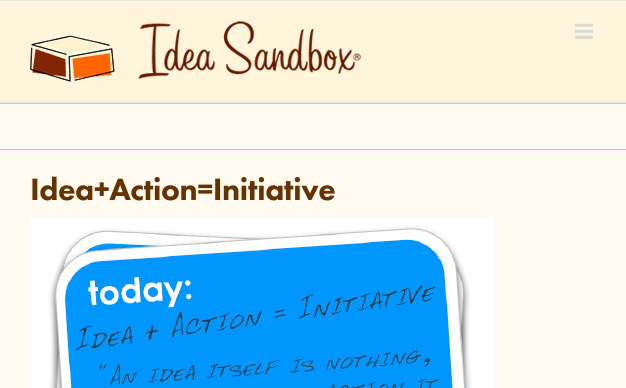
import math
import cairo



def draw_spaced(context, x, y, s, letter, word):
    context.move_to(x, y)
    for ch in s:
        context.show_text(ch)
        context.rel_move_to(letter + word * (ch == ' '), 0)


def draw_image(context, path, x, y, w, h):
    context.save()
    context.set_source_surface(cairo.ImageSurface.create_from_png(path), x, y)
    context.rectangle(x, y, w, h)
    context.fill()
    context.restore()


def draw(context):
    context.set_source_rgb(1, 251 / 255, 240 / 255)
    context.paint()
    context.set_source_rgb(229 / 255, 229 / 255, 229 / 255)
    context.rectangle(0, 0, 626, 1)
    context.fill()
    context.set_source_rgb(1, 245 / 255, 220 / 255)
    context.rectangle(0, 1, 626, 101)
    context.fill()
    context.set_source_rgb(229 / 255, 229 / 255, 229 / 255)
    context.rectangle(0, 102, 626, 1)
    context.fill()
    draw_image(context, "images/1.png", 30, 21, 331, 61)
    draw_image(context, "images/2.png", 575, 23, 18, 16)
    context.set_source_rgb(157 / 255, 216 / 255, 220 / 255)
    context.rectangle(0, 103, 626, 1)
    context.fill()
    context.rectangle(0, 149, 626, 1)
    context.fill()
    draw_image(context, "images/3.png", 30, 217, 464, 171)
    context.select_font_face("Futura PT Black")
    context.set_font_size(32)
    context.set_source_rgb(102 / 255, 51 / 255, 0)
    draw_spaced(context, 30, 200, "Idea+Action=Initiative", -0.5, 0)


surface = cairo.ImageSurface(cairo.Format.RGB24, 626, 388)
context = cairo.Context(surface)
options = cairo.FontOptions()
options.set_hint_metrics(cairo.HintMetrics.OFF)
options.set_hint_style(cairo.HintStyle.NONE)
context.set_font_options(options)
context.set_miter_limit(4)
draw(context)
surface.write_to_png("out.png")
